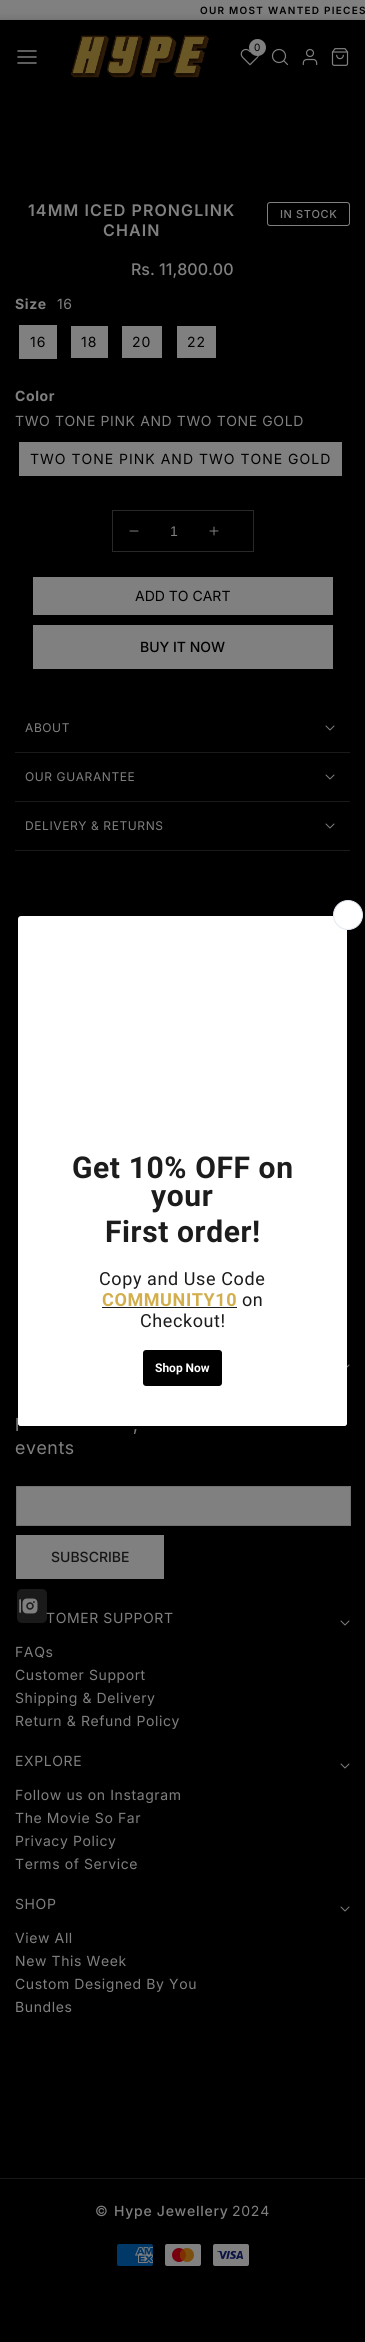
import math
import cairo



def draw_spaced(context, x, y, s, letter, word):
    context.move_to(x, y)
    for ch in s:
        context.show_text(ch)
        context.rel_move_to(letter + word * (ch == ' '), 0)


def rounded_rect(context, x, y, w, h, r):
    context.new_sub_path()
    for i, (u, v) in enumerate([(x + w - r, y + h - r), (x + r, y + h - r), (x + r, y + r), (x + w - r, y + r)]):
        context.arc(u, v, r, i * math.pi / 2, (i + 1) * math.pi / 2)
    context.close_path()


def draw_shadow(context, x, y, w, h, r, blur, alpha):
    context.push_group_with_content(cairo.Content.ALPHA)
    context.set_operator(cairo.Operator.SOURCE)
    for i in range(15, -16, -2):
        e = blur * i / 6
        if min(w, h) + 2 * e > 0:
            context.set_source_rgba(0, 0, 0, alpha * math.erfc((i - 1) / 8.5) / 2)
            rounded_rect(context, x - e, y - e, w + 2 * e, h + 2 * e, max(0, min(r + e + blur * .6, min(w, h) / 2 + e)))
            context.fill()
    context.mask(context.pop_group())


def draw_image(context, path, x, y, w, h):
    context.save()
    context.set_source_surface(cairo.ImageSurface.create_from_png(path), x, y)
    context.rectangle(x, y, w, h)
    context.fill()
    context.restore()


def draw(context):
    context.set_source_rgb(0, 0, 0)
    context.paint()
    context.set_source_rgb(128 / 255, 128 / 255, 128 / 255)
    context.rectangle(0, 0, 365, 20)
    context.fill()
    context.save()
    context.set_fill_rule(cairo.FillRule.EVEN_ODD)
    context.new_path()
    context.move_to(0, 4)
    context.line_to(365, 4)
    context.line_to(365, 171)
    context.line_to(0, 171)
    context.close_path()
    context.move_to(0, 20)
    context.line_to(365, 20)
    context.line_to(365, 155)
    context.line_to(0, 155)
    context.close_path()
    context.clip()
    context.set_source_rgb(0, 0, 0)
    draw_shadow(context, 0, 20, 365, 135, 0, 5, 0.2)
    context.restore()
    draw_image(context, "images/1.png", 70, 35, 139, 43)
    draw_image(context, "images/2.png", 240, 48, 20, 18)
    context.set_source_rgb(0, 0, 0)
    draw_shadow(context, 250, 40, 17, 17, 8.5, 2.5, 0.24)
    context.set_source_rgb(128 / 255, 128 / 255, 128 / 255)
    context.arc(257.5, 47.5, 8.5, 0, 2 * math.pi)
    context.fill()
    context.arc(279, 56, 6.5, 0, 2 * math.pi)
    context.set_line_width(1.2)
    context.stroke()
    context.new_path()
    context.move_to(287.5, 64.5)
    context.line_to(284, 61)
    context.set_line_cap(cairo.LineCap.ROUND)
    context.set_line_join(cairo.LineJoin.ROUND)
    context.stroke()
    draw_image(context, "images/3.png", 302, 48, 16, 18)
    draw_image(context, "images/4.png", 331, 48, 18, 18)
    draw_image(context, "images/5.png", 17, 50, 20, 14)
    rounded_rect(context, 267.5, 202.5, 82, 23, 2.5)
    context.set_line_width(1)
    context.set_line_cap(cairo.LineCap.BUTT)
    context.set_line_join(cairo.LineJoin.MITER)
    context.stroke()
    context.rectangle(19, 325, 38, 34)
    context.fill()
    context.rectangle(71, 326, 37, 32)
    context.fill()
    context.rectangle(122, 326, 40, 32)
    context.fill()
    context.rectangle(177, 326, 39, 32)
    context.fill()
    context.rectangle(19, 442, 323, 34)
    context.fill()
    context.rectangle(112.5, 510.5, 141, 41)
    context.set_source_rgb(41 / 255, 41 / 255, 41 / 255)
    context.stroke()
    draw_image(context, "images/6.png", 129, 530, 10, 2)
    draw_image(context, "images/7.png", 209, 526, 10, 10)
    context.set_source_rgb(128 / 255, 128 / 255, 128 / 255)
    context.rectangle(33, 577, 300, 38)
    context.fill()
    context.rectangle(33, 625, 300, 44)
    context.fill()
    context.set_source_rgb(26 / 255, 26 / 255, 26 / 255)
    context.rectangle(15, 752, 335, 1)
    context.fill()
    draw_image(context, "images/8.png", 325, 725, 10, 6)
    context.rectangle(15, 801, 335, 1)
    context.fill()
    draw_image(context, "images/8.png", 325, 774, 10, 6)
    context.rectangle(15, 850, 335, 1)
    context.fill()
    draw_image(context, "images/8.png", 325, 823, 10, 6)
    context.set_source_rgb(1, 1, 1)
    rounded_rect(context, 18, 916, 329, 510, 3)
    context.fill()
    context.arc(348, 915, 14.5, 0, 2 * math.pi)
    context.fill_preserve()
    context.set_source_rgb(226 / 255, 232 / 255, 240 / 255)
    context.stroke()
    context.set_source_rgb(1, 1, 1)
    rounded_rect(context, 18, 1116, 329, 310, 3)
    context.fill()
    context.set_source_rgb(28 / 255, 28 / 255, 28 / 255)
    context.rectangle(102, 1307, 135, 1)
    context.fill()
    context.set_source_rgb(0, 0, 0)
    rounded_rect(context, 143, 1350, 79, 36, 3)
    context.fill()
    draw_image(context, "images/9.png", 347, 1364, 3, 4)
    context.set_source_rgb(128 / 255, 128 / 255, 128 / 255)
    context.rectangle(16.5, 1486.5, 334, 39)
    context.fill_preserve()
    context.set_source_rgb(112 / 255, 112 / 255, 112 / 255)
    context.stroke()
    context.set_source_rgb(128 / 255, 128 / 255, 128 / 255)
    context.rectangle(16, 1535, 148, 44)
    context.fill()
    context.set_source_rgb(26 / 255, 26 / 255, 26 / 255)
    rounded_rect(context, 17, 1589, 26, 34, 5)
    context.fill()
    draw_image(context, "images/10.png", 19, 1599, 2, 14)
    rounded_rect(context, 21, 1589, 26, 34, 5)
    context.fill()
    draw_image(context, "images/11.png", 22, 1598, 16, 16)
    draw_image(context, "images/12.png", 340, 1620, 10, 6)
    draw_image(context, "images/12.png", 340, 1763, 10, 6)
    draw_image(context, "images/12.png", 340, 1906, 10, 6)
    context.set_source_rgb(24 / 255, 24 / 255, 24 / 255)
    context.rectangle(0, 2178, 365, 1)
    context.fill()
    draw_image(context, "images/13.png", 117, 2244, 36, 22)
    draw_image(context, "images/14.png", 165, 2244, 36, 22)
    draw_image(context, "images/15.png", 213, 2244, 36, 22)
    context.select_font_face("Inter SemiBold")
    context.set_font_size(10)
    context.set_source_rgb(0, 0, 0)
    draw_spaced(context, 200, 14, "OUR MOST WANTED PIECES", 1.25, 0)
    context.select_font_face("Inter")
    draw_spaced(context, 254, 51, "0", 0.6, 0)
    context.select_font_face("Inter SemiBold")
    context.set_font_size(16)
    context.set_source_rgb(128 / 255, 128 / 255, 128 / 255)
    draw_spaced(context, 28, 216, "14MM ICED PRONGLINK", 1.1, 0)
    draw_spaced(context, 103, 236, "CHAIN", 1.1, 0)
    context.select_font_face("Inter Medium")
    context.set_font_size(11)
    draw_spaced(context, 280, 218, "IN STOCK", 0.6, 0)
    context.set_font_size(16)
    context.move_to(131, 275)
    context.show_text("Rs. 11,800.00")
    context.select_font_face("Inter", cairo.FontSlant.NORMAL, cairo.FontWeight.BOLD)
    context.set_font_size(14)
    draw_spaced(context, 15, 309, "Size", 0.6, 0)
    context.select_font_face("Inter")
    draw_spaced(context, 57, 309, "16", 0.6, 0)
    context.set_source_rgb(0, 0, 0)
    draw_spaced(context, 30, 347, "16", 1, 0)
    draw_spaced(context, 81, 347, "18", 1, 0)
    draw_spaced(context, 132, 347, "20", 1, 0)
    draw_spaced(context, 187, 347, "22", 1, 0)
    context.select_font_face("Inter", cairo.FontSlant.NORMAL, cairo.FontWeight.BOLD)
    context.set_source_rgb(128 / 255, 128 / 255, 128 / 255)
    draw_spaced(context, 15, 401, "Color", 0.6, 0)
    context.select_font_face("Inter")
    draw_spaced(context, 15, 426, "TWO TONE PINK AND TWO TONE GOLD", 0.6, 0)
    context.set_source_rgb(0, 0, 0)
    draw_spaced(context, 30, 464, "TWO TONE PINK AND TWO TONE GOLD", 1, 0)
    context.select_font_face("Liberation Sans")
    context.set_source_rgb(128 / 255, 128 / 255, 128 / 255)
    context.move_to(170, 536)
    context.show_text("1")
    context.select_font_face("Inter")
    context.set_source_rgb(0, 0, 0)
    context.move_to(135, 601)
    context.show_text("ADD TO CART")
    context.select_font_face("Inter Medium")
    context.move_to(140, 652)
    context.show_text("BUY IT NOW")
    context.select_font_face("Inter")
    context.set_font_size(12)
    context.set_source_rgb(128 / 255, 128 / 255, 128 / 255)
    draw_spaced(context, 25, 732, "ABOUT", 0.6, 0)
    draw_spaced(context, 25, 781, "OUR GUARANTEE", 0.6, 0)
    draw_spaced(context, 25, 830, "DELIVERY & RETURNS", 0.6, 0)
    context.select_font_face("Roboto", cairo.FontSlant.NORMAL, cairo.FontWeight.BOLD)
    context.set_font_size(30)
    context.set_source_rgb(28 / 255, 28 / 255, 28 / 255)
    draw_spaced(context, 72, 1178, "Get 10% OFF on", 0.6, 0)
    draw_spaced(context, 151, 1206, "your", 0.6, 0)
    draw_spaced(context, 105, 1242, "First order!", 0.6, 0)
    context.select_font_face("Roboto")
    context.set_font_size(18)
    draw_spaced(context, 99, 1285, "Copy and Use Code", 0.6, 0)
    context.select_font_face("Roboto", cairo.FontSlant.NORMAL, cairo.FontWeight.BOLD)
    context.set_source_rgb(211 / 255, 174 / 255, 77 / 255)
    draw_spaced(context, 102, 1306, "COMMUNITY10", 0.6, 0)
    context.select_font_face("Roboto")
    context.set_source_rgb(28 / 255, 28 / 255, 28 / 255)
    draw_spaced(context, 242, 1306, "on", 0.6, 0)
    draw_spaced(context, 140, 1327, "Checkout!", 0.6, 0)
    context.select_font_face("Roboto", cairo.FontSlant.NORMAL, cairo.FontWeight.BOLD)
    context.set_font_size(12)
    context.set_source_rgb(1, 1, 1)
    context.move_to(155, 1372)
    context.show_text("Shop Now")
    context.select_font_face("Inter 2")
    context.set_font_size(18)
    context.set_source_rgb(128 / 255, 128 / 255, 128 / 255)
    draw_spaced(context, 15, 1431, "l", 0.6, 0)
    draw_spaced(context, 133, 1431, ",", 0.6, 0)
    draw_spaced(context, 15, 1454, "events", 0.6, 0)
    context.select_font_face("Inter Medium")
    context.set_font_size(14)
    context.set_source_rgb(21 / 255, 21 / 255, 21 / 255)
    context.move_to(51, 1562)
    context.show_text("SUBSCRIBE")
    context.select_font_face("Inter")
    context.set_source_rgb(128 / 255, 128 / 255, 128 / 255)
    draw_spaced(context, 46, 1623, "TOMER SUPPORT", 0.6, 0)
    draw_spaced(context, 15, 1657, "FAQs", 0.6, 0)
    draw_spaced(context, 15, 1680, "Customer Support", 0.6, 0)
    draw_spaced(context, 15, 1703, "Shipping & Delivery", 0.6, 0)
    draw_spaced(context, 15, 1726, "Return & Refund Policy", 0.6, 0)
    draw_spaced(context, 15, 1766, "EXPLORE", 0.6, 0)
    draw_spaced(context, 15, 1800, "Follow us on Instagram", 0.6, 0)
    draw_spaced(context, 15, 1823, "The Movie So Far", 0.6, 0)
    draw_spaced(context, 15, 1846, "Privacy Policy", 0.6, 0)
    draw_spaced(context, 15, 1869, "Terms of Service", 0.6, 0)
    draw_spaced(context, 15, 1909, "SHOP", 0.6, 0)
    draw_spaced(context, 15, 1943, "View All", 0.6, 0)
    draw_spaced(context, 15, 1966, "New This Week", 0.6, 0)
    draw_spaced(context, 15, 1989, "Custom Designed By You", 0.6, 0)
    draw_spaced(context, 15, 2012, "Bundles", 0.6, 0)
    draw_spaced(context, 95, 2216, "©", 0.75, 0)
    context.select_font_face("Inter Medium")
    draw_spaced(context, 114, 2216, "Hype Jewellery", 0.75, 0)
    context.select_font_face("Inter")
    draw_spaced(context, 232, 2216, "2024", 0.75, 0)


surface = cairo.ImageSurface(cairo.Format.RGB24, 365, 2342)
context = cairo.Context(surface)
options = cairo.FontOptions()
options.set_hint_metrics(cairo.HintMetrics.OFF)
options.set_hint_style(cairo.HintStyle.NONE)
context.set_font_options(options)
context.set_miter_limit(4)
draw(context)
surface.write_to_png("out.png")
